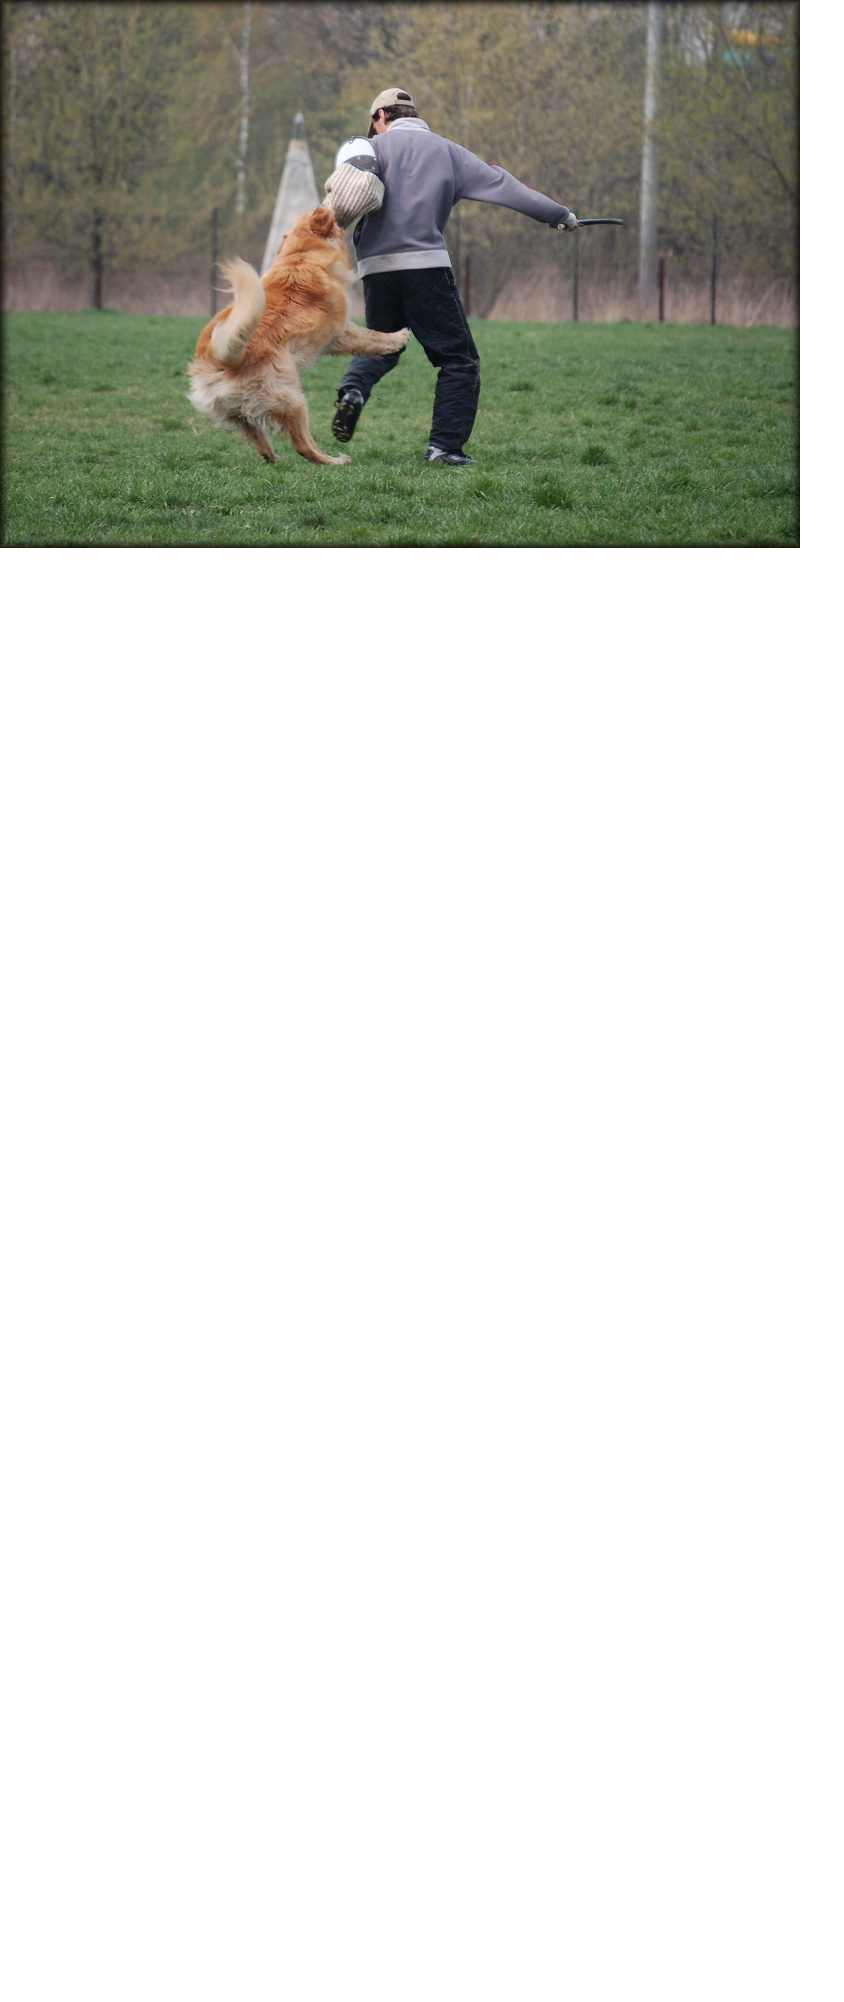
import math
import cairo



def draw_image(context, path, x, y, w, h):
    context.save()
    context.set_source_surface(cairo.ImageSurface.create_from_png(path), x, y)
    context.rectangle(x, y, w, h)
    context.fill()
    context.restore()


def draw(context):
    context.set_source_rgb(1, 1, 1)
    context.paint()
    draw_image(context, "images/1.png", 0, 0, 800, 548)


surface = cairo.ImageSurface(cairo.Format.RGB24, 844, 2002)
context = cairo.Context(surface)
options = cairo.FontOptions()
options.set_hint_metrics(cairo.HintMetrics.OFF)
options.set_hint_style(cairo.HintStyle.NONE)
context.set_font_options(options)
context.set_miter_limit(4)
draw(context)
surface.write_to_png("out.png")
